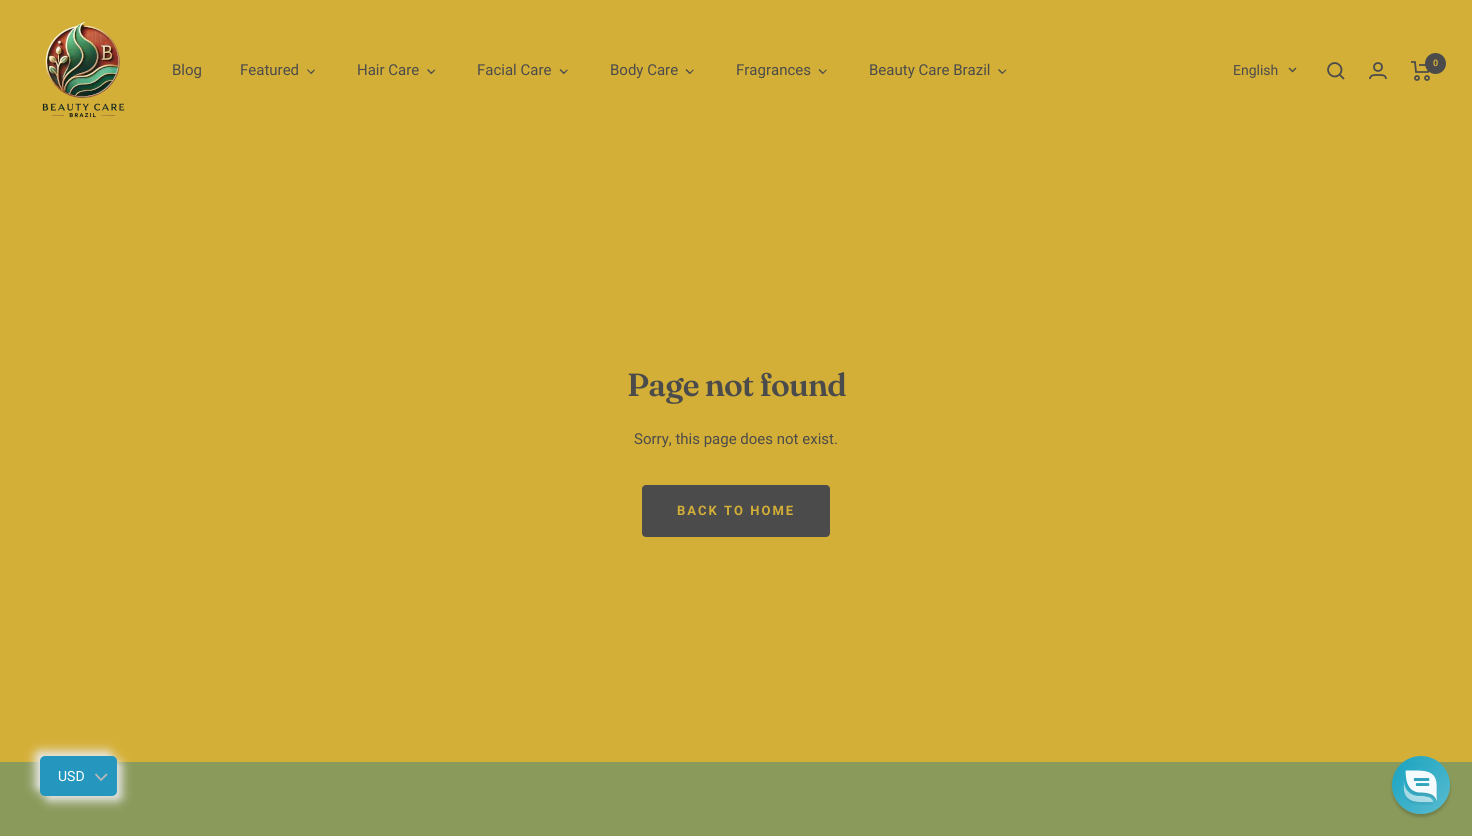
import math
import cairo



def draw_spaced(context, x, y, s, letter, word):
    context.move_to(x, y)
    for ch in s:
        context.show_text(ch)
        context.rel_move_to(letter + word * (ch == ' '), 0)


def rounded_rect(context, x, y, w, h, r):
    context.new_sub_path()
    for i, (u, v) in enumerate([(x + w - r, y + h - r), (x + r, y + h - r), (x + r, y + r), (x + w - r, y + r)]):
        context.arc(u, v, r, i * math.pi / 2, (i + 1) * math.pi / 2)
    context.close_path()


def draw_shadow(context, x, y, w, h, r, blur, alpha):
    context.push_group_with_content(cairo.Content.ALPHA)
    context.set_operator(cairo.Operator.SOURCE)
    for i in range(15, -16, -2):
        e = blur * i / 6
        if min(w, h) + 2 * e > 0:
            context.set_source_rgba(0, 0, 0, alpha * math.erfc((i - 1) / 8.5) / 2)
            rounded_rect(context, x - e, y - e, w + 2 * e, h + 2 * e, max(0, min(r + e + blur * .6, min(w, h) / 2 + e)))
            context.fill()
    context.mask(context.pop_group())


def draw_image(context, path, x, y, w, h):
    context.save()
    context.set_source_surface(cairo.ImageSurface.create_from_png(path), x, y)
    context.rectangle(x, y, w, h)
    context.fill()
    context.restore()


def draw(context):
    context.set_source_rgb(212 / 255, 175 / 255, 55 / 255)
    context.paint()
    draw_image(context, "images/1.png", 42, 21, 83, 97)
    context.set_source_rgb(75 / 255, 75 / 255, 75 / 255)
    context.new_path()
    context.move_to(314, 69.5)
    context.line_to(315, 70)
    context.line_to(311.5, 74)
    context.line_to(310.5, 73)
    context.close_path()
    context.fill()
    context.new_path()
    context.move_to(307.5, 69)
    context.line_to(311.5, 73)
    context.line_to(311, 74)
    context.line_to(307, 70)
    context.close_path()
    context.fill()
    context.new_path()
    context.move_to(434.5, 69.5)
    context.line_to(435.5, 70)
    context.line_to(431.5, 74)
    context.line_to(430.5, 73)
    context.close_path()
    context.fill()
    context.new_path()
    context.move_to(428, 69)
    context.line_to(432, 73)
    context.line_to(431, 74)
    context.line_to(427, 70)
    context.close_path()
    context.fill()
    context.new_path()
    context.move_to(567, 69.5)
    context.line_to(568, 70)
    context.line_to(564, 74)
    context.line_to(563, 73)
    context.close_path()
    context.fill()
    context.new_path()
    context.move_to(560.5, 69)
    context.line_to(564.5, 73)
    context.line_to(563.5, 74)
    context.line_to(559.5, 70)
    context.close_path()
    context.fill()
    context.new_path()
    context.move_to(693, 69.5)
    context.line_to(694, 70)
    context.line_to(690, 74)
    context.line_to(689.5, 73)
    context.close_path()
    context.fill()
    context.new_path()
    context.move_to(686.5, 69)
    context.line_to(690.5, 73)
    context.line_to(689.5, 74)
    context.line_to(685.5, 70)
    context.close_path()
    context.fill()
    context.new_path()
    context.move_to(826, 69.5)
    context.line_to(827, 70)
    context.line_to(823, 74)
    context.line_to(822.5, 73)
    context.close_path()
    context.fill()
    context.new_path()
    context.move_to(819.5, 69)
    context.line_to(823.5, 73)
    context.line_to(822.5, 74)
    context.line_to(818.5, 70)
    context.close_path()
    context.fill()
    context.new_path()
    context.move_to(1005.5, 69.5)
    context.line_to(1006.5, 70)
    context.line_to(1002.5, 74)
    context.line_to(1002, 73)
    context.close_path()
    context.fill()
    context.new_path()
    context.move_to(999, 69)
    context.line_to(1003, 73)
    context.line_to(1002, 74)
    context.line_to(998, 70)
    context.close_path()
    context.fill()
    context.new_path()
    context.move_to(1339.5, 74.5)
    context.curve_to(1345.5, 68, 1336.5, 59, 1330, 65)
    context.curve_to(1324, 71.5, 1333, 80.5, 1339.5, 74.5)
    context.close_path()
    context.move_to(1339.5, 74.5)
    context.line_to(1344, 79)
    context.set_line_width(1.8)
    context.stroke()
    context.arc(1378, 67, 4, 0, 2 * math.pi)
    context.stroke()
    context.new_path()
    context.move_to(1370, 79)
    context.curve_to(1370, 74.5, 1375, 75, 1378, 75)
    context.curve_to(1381, 75, 1386, 74.5, 1386, 79)
    context.move_to(1411, 62)
    context.line_to(1415, 62)
    context.line_to(1416, 72)
    context.line_to(1428, 72)
    context.line_to(1430, 65)
    context.line_to(1419, 65)
    context.stroke()
    context.arc(1435.5, 63.5, 10.5, 0, 2 * math.pi)
    context.fill()
    context.arc(1417, 78, 2, 0, 2 * math.pi)
    context.stroke()
    context.arc(1427, 78, 2, 0, 2 * math.pi)
    context.stroke()
    context.new_path()
    context.move_to(1289, 68)
    context.line_to(1292.5, 71.5)
    context.line_to(1296, 68)
    context.set_line_width(1.4)
    context.stroke()
    rounded_rect(context, 642, 485, 188, 52, 4)
    context.fill()
    context.set_source_rgb(138 / 255, 154 / 255, 91 / 255)
    context.rectangle(0, 762, 1472, 74)
    context.fill()
    context.save()
    context.set_fill_rule(cairo.FillRule.EVEN_ODD)
    context.new_path()
    context.move_to(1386, 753)
    context.line_to(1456, 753)
    context.line_to(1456, 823)
    context.line_to(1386, 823)
    context.close_path()
    context.move_to(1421, 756)
    context.curve_to(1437, 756, 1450, 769, 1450, 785)
    context.curve_to(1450, 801, 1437, 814, 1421, 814)
    context.curve_to(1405, 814, 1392, 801, 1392, 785)
    context.curve_to(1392, 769, 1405, 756, 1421, 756)
    context.close_path()
    context.clip()
    context.set_source_rgb(0, 0, 0)
    draw_shadow(context, 1392, 759, 58, 58, 29, 1.5, 0.19)
    context.restore()
    gradient = cairo.LinearGradient(1392, 756, 1450, 814)
    gradient.add_color_stop_rgba(0, 16 / 255, 162 / 255, 197 / 255, 0.95)
    gradient.add_color_stop_rgba(1, 88 / 255, 190 / 255, 214 / 255, 0.95)
    context.set_source(gradient)
    context.arc(1421, 785, 29, 0, 2 * math.pi)
    context.fill()
    draw_image(context, "images/2.png", 1403, 770, 34, 35)
    context.set_source_rgb(232 / 255, 232 / 255, 232 / 255)
    draw_shadow(context, 35, 751, 77, 40, 5, 5, 1)
    draw_shadow(context, 45, 761, 77, 40, 5, 5, 1)
    context.set_source_rgb(37 / 255, 150 / 255, 190 / 255)
    rounded_rect(context, 40, 756, 77, 40, 5)
    context.fill()
    context.new_path()
    context.move_to(96, 774.5)
    context.line_to(101, 780)
    context.line_to(106.5, 774.5)
    context.set_source_rgb(183 / 255, 183 / 255, 183 / 255)
    context.set_line_width(1.8)
    context.set_line_cap(cairo.LineCap.ROUND)
    context.set_line_join(cairo.LineJoin.ROUND)
    context.stroke()
    context.select_font_face("Roboto")
    context.set_font_size(15)
    context.set_source_rgb(75 / 255, 75 / 255, 75 / 255)
    context.move_to(172, 75)
    context.show_text("Blog")
    context.move_to(240, 75)
    context.show_text("Featured")
    context.move_to(357, 75)
    context.show_text("Hair Care")
    context.move_to(477, 75)
    context.show_text("Facial Care")
    context.move_to(610, 75)
    context.show_text("Body Care")
    context.move_to(736, 75)
    context.show_text("Fragrances")
    context.move_to(869, 75)
    context.show_text("Beauty Care Brazil")
    context.select_font_face("Roboto", cairo.FontSlant.NORMAL, cairo.FontWeight.BOLD)
    context.set_font_size(9)
    context.set_source_rgb(212 / 255, 175 / 255, 55 / 255)
    context.move_to(1433, 66)
    context.show_text("0")
    context.select_font_face("Roboto")
    context.set_font_size(14)
    context.set_source_rgb(75 / 255, 75 / 255, 75 / 255)
    context.move_to(1233, 75)
    context.show_text("English")
    context.select_font_face("Fraunces SemiBold")
    context.set_font_size(32)
    draw_spaced(context, 627, 396, "Page not found", -0.75, 0)
    context.select_font_face("Roboto")
    context.set_font_size(15)
    context.move_to(634, 444)
    context.show_text("Sorry, this page does not exist.")
    context.select_font_face("Roboto", cairo.FontSlant.NORMAL, cairo.FontWeight.BOLD)
    context.set_font_size(13)
    context.set_source_rgb(212 / 255, 175 / 255, 55 / 255)
    draw_spaced(context, 677, 515, "BACK TO HOME", 2, 0)
    context.select_font_face("Roboto")
    context.set_font_size(14)
    context.set_source_rgb(1, 1, 1)
    context.move_to(58, 781)
    context.show_text("USD")


surface = cairo.ImageSurface(cairo.Format.RGB24, 1472, 836)
context = cairo.Context(surface)
options = cairo.FontOptions()
options.set_hint_metrics(cairo.HintMetrics.OFF)
options.set_hint_style(cairo.HintStyle.NONE)
context.set_font_options(options)
context.set_miter_limit(4)
draw(context)
surface.write_to_png("out.png")
